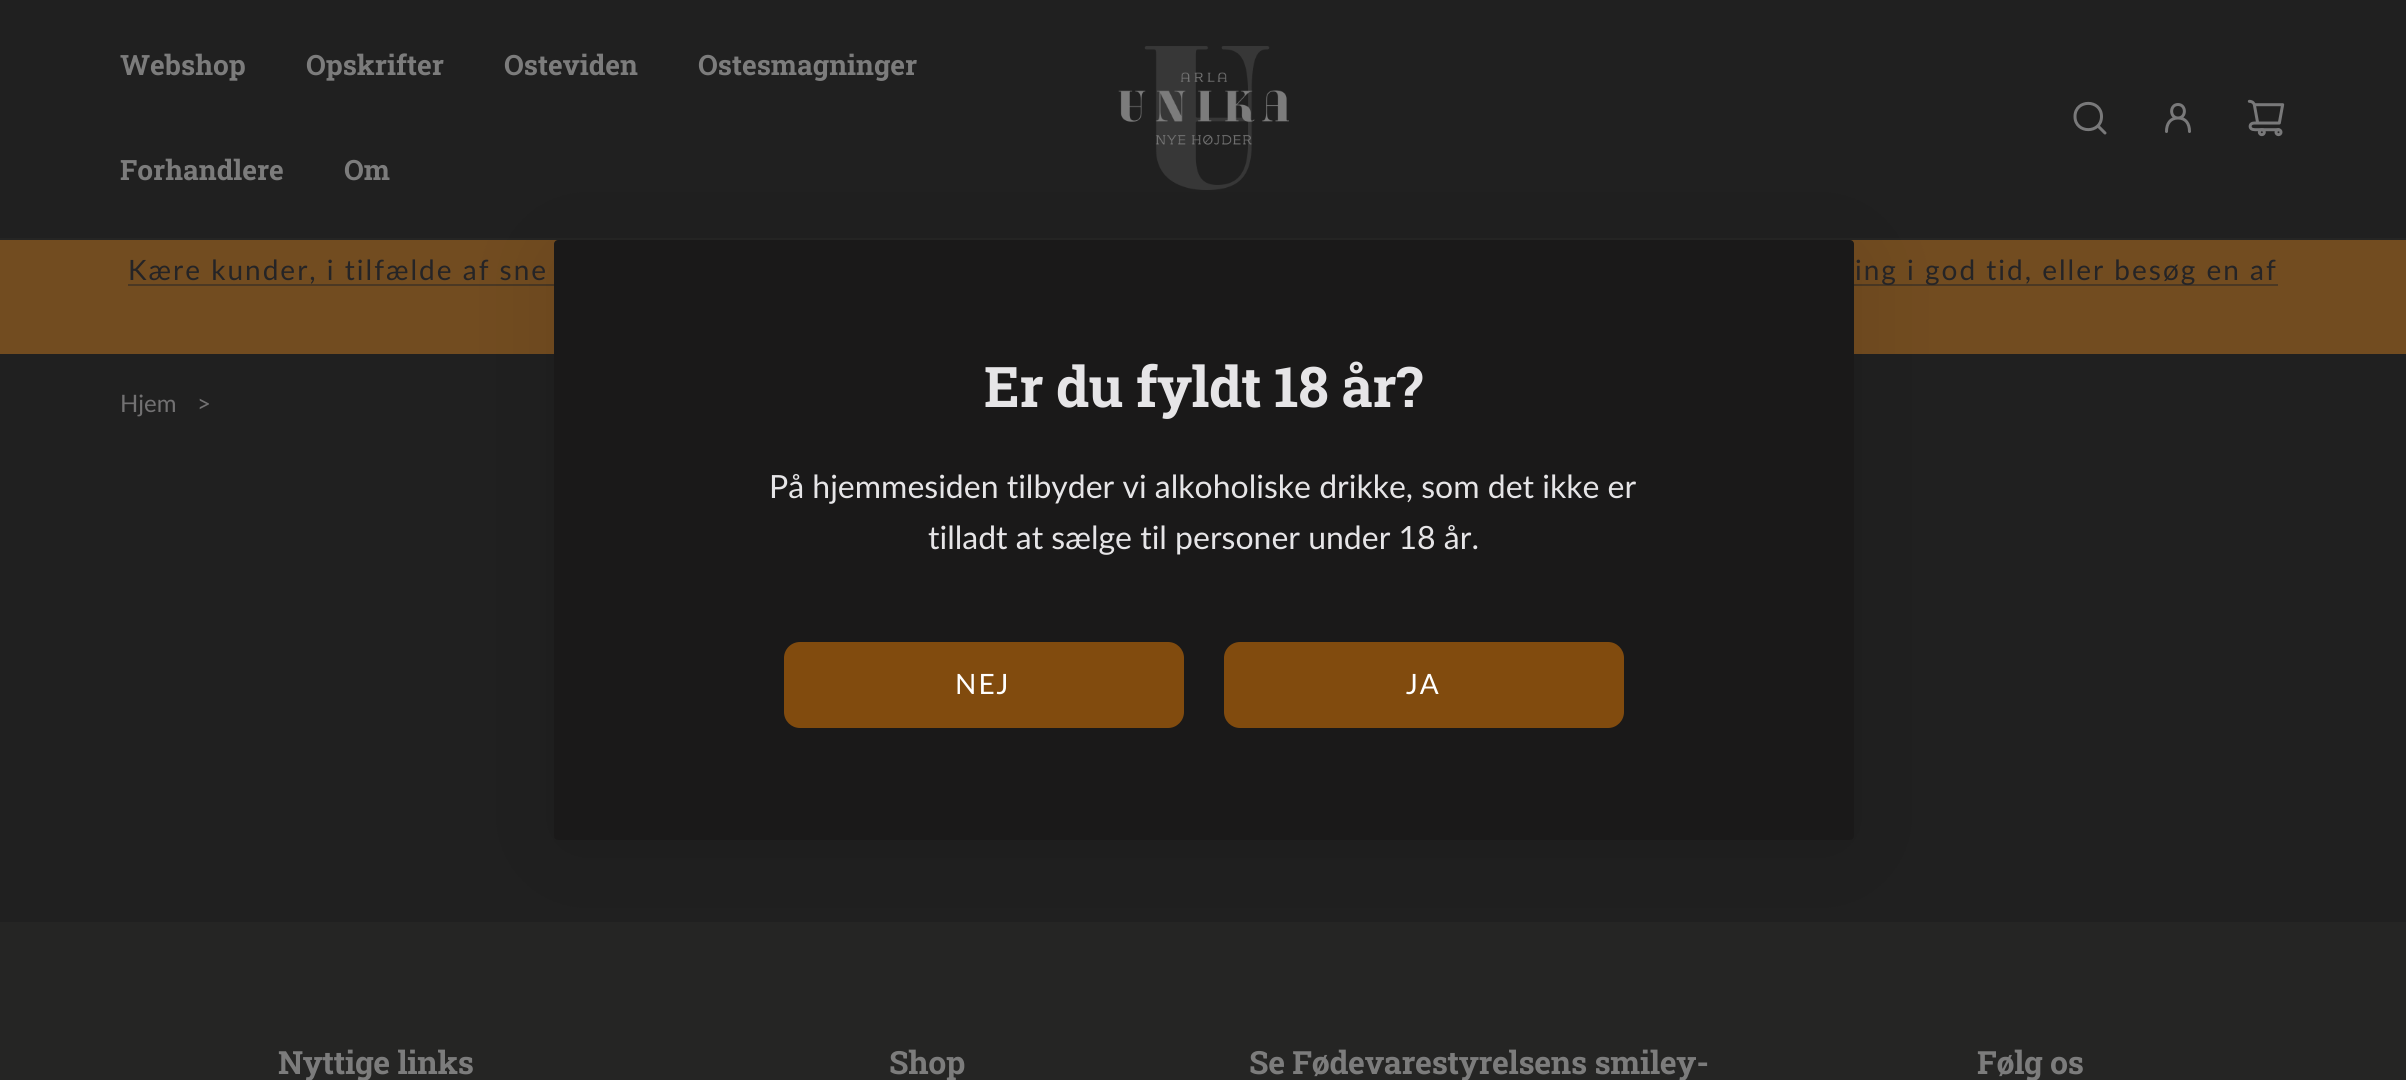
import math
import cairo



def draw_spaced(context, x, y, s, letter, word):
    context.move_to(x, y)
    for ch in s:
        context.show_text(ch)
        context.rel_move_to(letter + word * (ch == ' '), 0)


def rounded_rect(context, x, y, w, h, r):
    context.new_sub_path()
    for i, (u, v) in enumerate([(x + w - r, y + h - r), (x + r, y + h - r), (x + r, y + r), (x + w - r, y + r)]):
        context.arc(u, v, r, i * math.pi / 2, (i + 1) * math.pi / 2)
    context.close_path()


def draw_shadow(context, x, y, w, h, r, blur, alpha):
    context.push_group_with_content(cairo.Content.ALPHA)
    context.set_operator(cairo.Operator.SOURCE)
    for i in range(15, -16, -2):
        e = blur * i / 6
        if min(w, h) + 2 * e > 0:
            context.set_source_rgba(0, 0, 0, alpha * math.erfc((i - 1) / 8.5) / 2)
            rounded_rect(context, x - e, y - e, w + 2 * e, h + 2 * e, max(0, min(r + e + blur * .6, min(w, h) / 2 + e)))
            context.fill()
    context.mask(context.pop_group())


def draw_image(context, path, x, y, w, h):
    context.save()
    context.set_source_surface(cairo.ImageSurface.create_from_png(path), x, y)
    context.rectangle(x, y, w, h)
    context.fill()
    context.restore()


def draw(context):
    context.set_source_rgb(32 / 255, 32 / 255, 32 / 255)
    context.paint()
    context.set_source_rgb(37 / 255, 37 / 255, 36 / 255)
    context.rectangle(0, 238, 2406, 2)
    context.fill()
    draw_image(context, "images/1.png", 1118, 46, 171, 144)
    context.new_path()
    context.move_to(2098.5, 126.5)
    context.line_to(2105, 133)
    context.move_to(2075, 116.5)
    context.curve_to(2075, 134, 2101.5, 134, 2101.5, 116.5)
    context.curve_to(2101.5, 99, 2075, 99, 2075, 116.5)
    context.close_path()
    context.set_source_rgb(121 / 255, 121 / 255, 122 / 255)
    context.set_line_width(3)
    context.set_line_cap(cairo.LineCap.ROUND)
    context.set_line_join(cairo.LineJoin.ROUND)
    context.stroke()
    context.new_path()
    context.move_to(2166.5, 131.5)
    context.curve_to(2166.5, 124, 2170, 118, 2178, 118)
    context.move_to(2178, 118)
    context.curve_to(2186, 118, 2189.5, 124, 2189.5, 131.5)
    context.move_to(2178, 118)
    context.curve_to(2186.5, 118, 2186.5, 104.5, 2178, 104.5)
    context.curve_to(2169.5, 104.5, 2169.5, 118, 2178, 118)
    context.close_path()
    context.stroke()
    draw_image(context, "images/2.png", 2247, 99, 38, 38)
    context.set_source_rgb(114 / 255, 76 / 255, 32 / 255)
    context.rectangle(0, 240, 2406, 114)
    context.fill()
    context.set_source_rgb(75 / 255, 56 / 255, 35 / 255)
    context.rectangle(128, 284, 2150, 2)
    context.fill()
    context.set_source_rgb(37 / 255, 37 / 255, 36 / 255)
    context.rectangle(0, 922, 2406, 158)
    context.fill()
    context.set_source_rgb(0, 0, 0)
    draw_shadow(context, 554, 250, 1300, 600, 4, 50, 0.1)
    context.set_source_rgb(26 / 255, 25 / 255, 25 / 255)
    rounded_rect(context, 554, 240, 1300, 600, 4)
    context.fill()
    context.set_source_rgb(129 / 255, 75 / 255, 14 / 255)
    rounded_rect(context, 784, 642, 400, 86, 16)
    context.fill()
    rounded_rect(context, 1224, 642, 400, 86, 16)
    context.fill()
    context.select_font_face("Roboto Slab", cairo.FontSlant.NORMAL, cairo.FontWeight.BOLD)
    context.set_font_size(28)
    context.set_source_rgb(124 / 255, 124 / 255, 124 / 255)
    context.move_to(120, 75)
    context.show_text("Webshop")
    context.move_to(306, 75)
    context.show_text("Opskrifter")
    context.move_to(504, 75)
    context.show_text("Osteviden")
    context.move_to(698, 75)
    context.show_text("Ostesmagninger")
    context.move_to(120, 180)
    context.show_text("Forhandlere")
    context.move_to(344, 180)
    context.show_text("Om")
    context.select_font_face("Lato")
    context.set_source_rgb(37 / 255, 36 / 255, 38 / 255)
    draw_spaced(context, 128, 280, "Kære kunder, i tilfælde af sne", 2, 0)
    draw_spaced(context, 1855, 280, "ing i god tid, eller besøg en af", 2, 0)
    context.set_font_size(24)
    context.set_source_rgb(114 / 255, 113 / 255, 114 / 255)
    context.move_to(120, 412)
    context.show_text("Hjem")
    context.move_to(197, 412)
    context.show_text(">")
    context.select_font_face("Roboto Slab", cairo.FontSlant.NORMAL, cairo.FontWeight.BOLD)
    context.set_font_size(56)
    context.set_source_rgb(230 / 255, 229 / 255, 231 / 255)
    draw_spaced(context, 984, 407, "Er du fyldt 18 år?", -0.6, 0)
    context.select_font_face("Lato")
    context.set_font_size(32)
    context.move_to(769, 498)
    context.show_text("På hjemmesiden tilbyder vi alkoholiske drikke, som det ikke er")
    context.move_to(928, 549)
    context.show_text("tilladt at sælge til personer under 18 år.")
    context.set_font_size(28)
    context.set_source_rgb(1, 1, 1)
    draw_spaced(context, 955, 694, "NEJ", 2, 0)
    draw_spaced(context, 1406, 694, "JA", 2, 0)
    context.select_font_face("Roboto Slab", cairo.FontSlant.NORMAL, cairo.FontWeight.BOLD)
    context.set_font_size(32)
    context.set_source_rgb(124 / 255, 124 / 255, 124 / 255)
    draw_spaced(context, 278, 1074, "Nyttige links", -0.3, 0)
    draw_spaced(context, 889, 1074, "Shop", -0.3, 0)
    draw_spaced(context, 1249, 1074, "Se Fødevarestyrelsens smiley-", -0.3, 0)
    draw_spaced(context, 1977, 1074, "Følg os", -0.3, 0)


surface = cairo.ImageSurface(cairo.Format.RGB24, 2406, 1080)
context = cairo.Context(surface)
options = cairo.FontOptions()
options.set_hint_metrics(cairo.HintMetrics.OFF)
options.set_hint_style(cairo.HintStyle.NONE)
context.set_font_options(options)
context.set_miter_limit(4)
draw(context)
surface.write_to_png("out.png")
